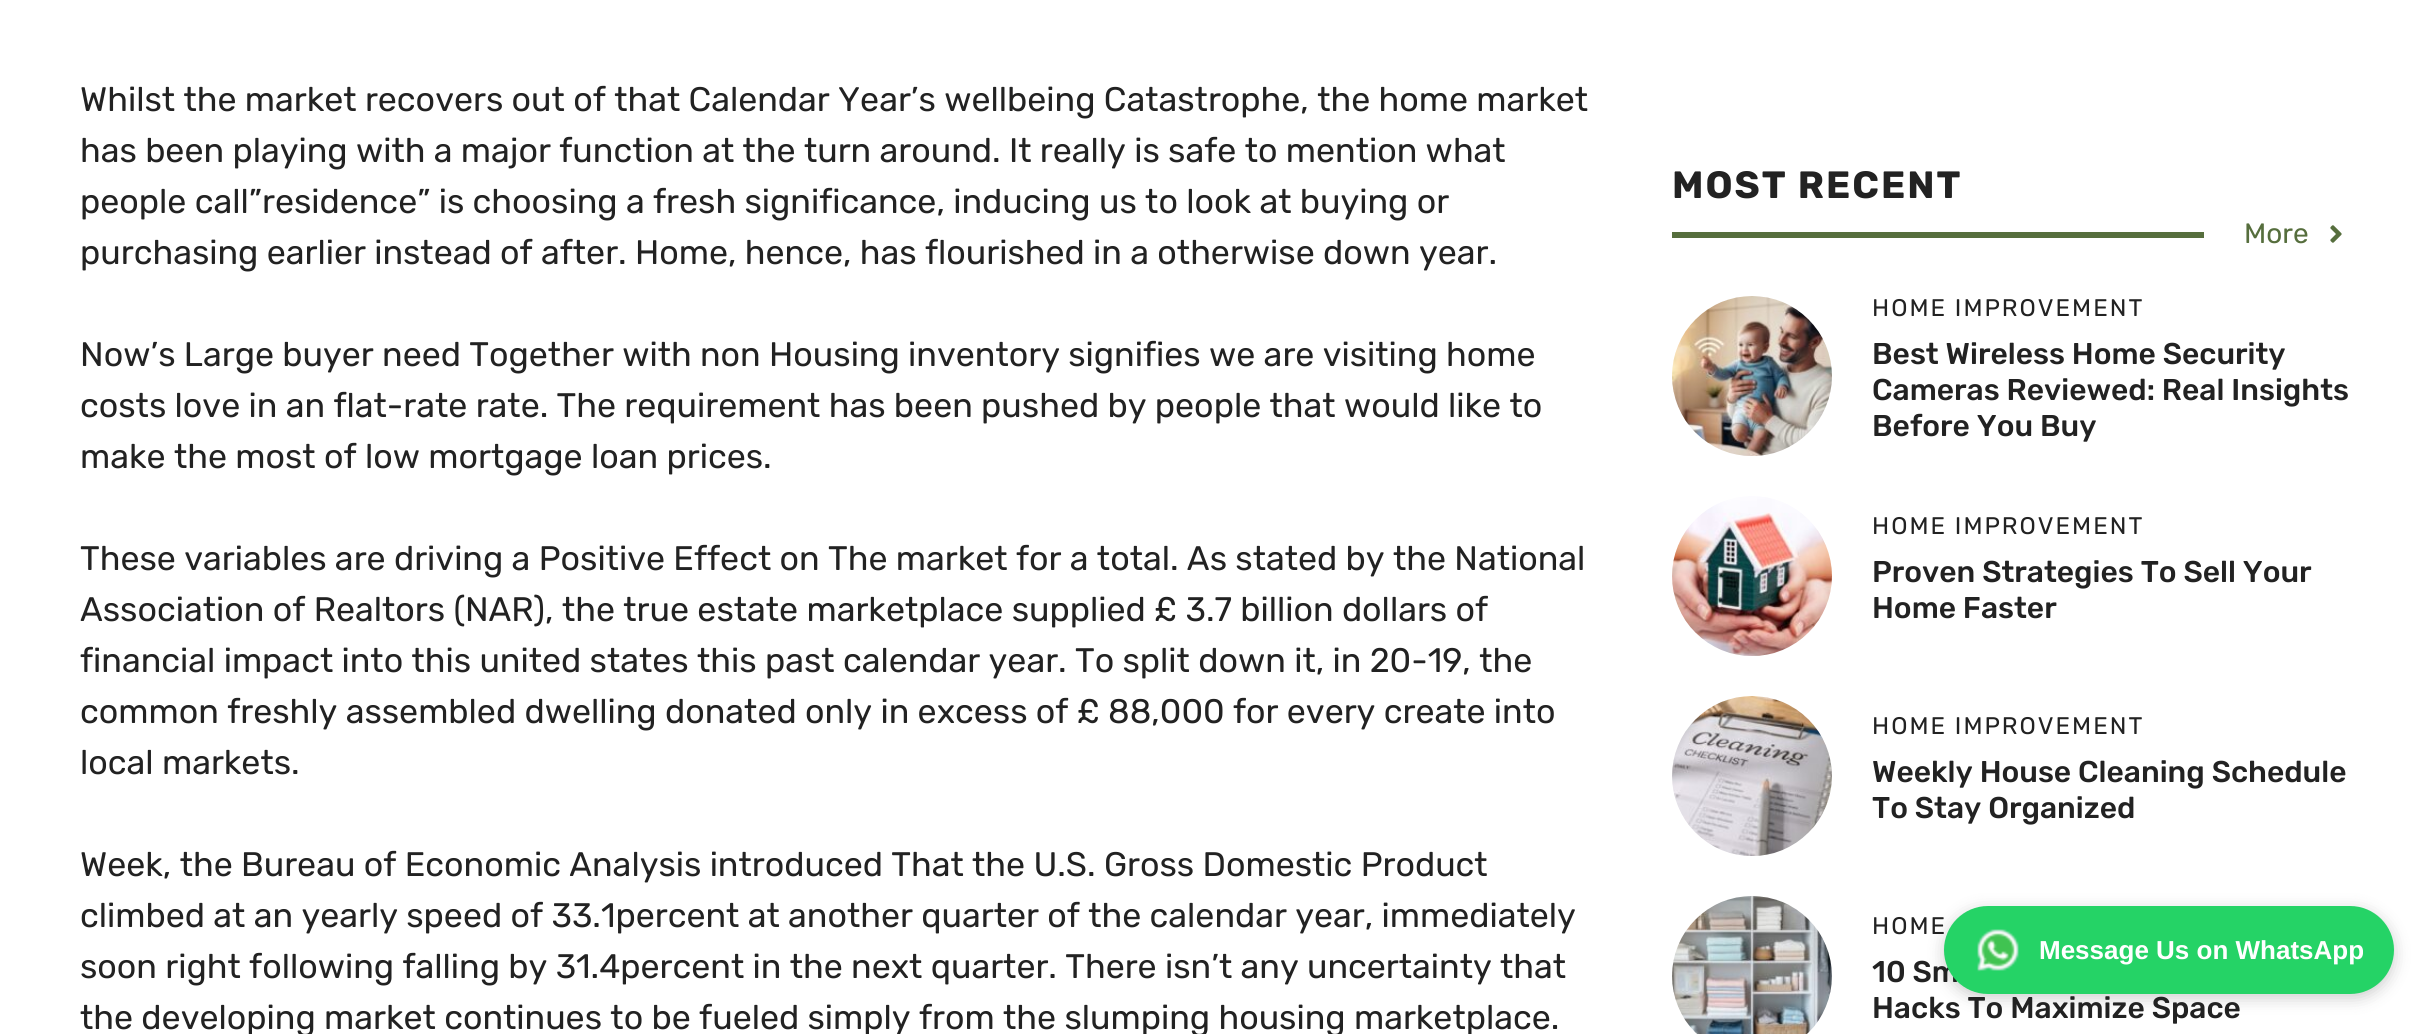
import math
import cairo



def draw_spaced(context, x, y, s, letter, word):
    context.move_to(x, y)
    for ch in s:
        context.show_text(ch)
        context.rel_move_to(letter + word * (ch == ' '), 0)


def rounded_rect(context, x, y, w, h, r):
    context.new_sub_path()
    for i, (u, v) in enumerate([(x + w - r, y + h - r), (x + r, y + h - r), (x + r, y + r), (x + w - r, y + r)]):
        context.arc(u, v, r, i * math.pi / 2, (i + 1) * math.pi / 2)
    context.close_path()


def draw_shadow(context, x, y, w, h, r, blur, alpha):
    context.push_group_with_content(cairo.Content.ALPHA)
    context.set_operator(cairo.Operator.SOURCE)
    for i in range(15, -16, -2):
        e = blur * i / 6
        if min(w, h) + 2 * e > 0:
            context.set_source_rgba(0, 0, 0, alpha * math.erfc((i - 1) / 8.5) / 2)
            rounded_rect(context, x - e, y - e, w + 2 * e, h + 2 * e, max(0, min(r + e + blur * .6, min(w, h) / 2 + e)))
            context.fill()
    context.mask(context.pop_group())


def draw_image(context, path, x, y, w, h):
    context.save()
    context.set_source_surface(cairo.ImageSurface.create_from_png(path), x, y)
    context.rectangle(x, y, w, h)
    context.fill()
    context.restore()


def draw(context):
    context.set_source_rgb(1, 1, 1)
    context.paint()
    context.set_source_rgb(86 / 255, 110 / 255, 61 / 255)
    context.rectangle(1672, 232, 532, 6)
    context.fill()
    draw_image(context, "images/1.png", 2330, 225, 12, 18)
    draw_image(context, "images/2.png", 1672, 296, 160, 160)
    draw_image(context, "images/3.png", 1672, 496, 160, 160)
    draw_image(context, "images/4.png", 1672, 696, 160, 160)
    draw_image(context, "images/5.png", 1672, 896, 160, 138)
    context.set_source_rgb(0, 0, 0)
    draw_shadow(context, 1944, 910, 450, 88, 44, 8, 0.2)
    context.select_font_face("Rubik")
    context.set_font_size(34)
    context.set_source_rgb(34 / 255, 34 / 255, 34 / 255)
    context.move_to(80, 111)
    context.show_text("Whilst the market recovers out of that Calendar Year’s wellbeing Catastrophe, the home market")
    context.move_to(80, 162)
    context.show_text("has been playing with a major function at the turn around. It really is safe to mention what")
    context.move_to(80, 213)
    context.show_text("people call”residence” is choosing a fresh significance, inducing us to look at buying or")
    context.move_to(80, 264)
    context.show_text("purchasing earlier instead of after. Home, hence, has flourished in a otherwise down year.")
    context.move_to(80, 366)
    context.show_text("Now’s Large buyer need Together with non Housing inventory signifies we are visiting home")
    context.move_to(80, 417)
    context.show_text("costs love in an flat-rate rate. The requirement has been pushed by people that would like to")
    context.move_to(80, 468)
    context.show_text("make the most of low mortgage loan prices.")
    context.move_to(80, 570)
    context.show_text("These variables are driving a Positive Effect on The market for a total. As stated by the National")
    context.move_to(80, 621)
    context.show_text("Association of Realtors (NAR), the true estate marketplace supplied £ 3.7 billion dollars of")
    context.move_to(80, 672)
    context.show_text("financial impact into this united states this past calendar year. To split down it, in 20-19, the")
    context.move_to(80, 723)
    context.show_text("common freshly assembled dwelling donated only in excess of £ 88,000 for every create into")
    context.move_to(80, 774)
    context.show_text("local markets.")
    context.move_to(80, 876)
    context.show_text("Week, the Bureau of Economic Analysis introduced That the U.S. Gross Domestic Product")
    context.move_to(80, 927)
    context.show_text("climbed at an yearly speed of 33.1percent at another quarter of the calendar year, immediately")
    context.move_to(80, 978)
    context.show_text("soon right following falling by 31.4percent in the next quarter. There isn’t any uncertainty that")
    context.move_to(80, 1029)
    context.show_text("the developing market continues to be fueled simply from the slumping housing marketplace.")
    context.select_font_face("Rubik", cairo.FontSlant.NORMAL, cairo.FontWeight.BOLD)
    context.set_font_size(38)
    draw_spaced(context, 1672, 198, "MOST RECENT", 2, 0)
    context.select_font_face("Rubik")
    context.set_font_size(28)
    context.set_source_rgb(86 / 255, 110 / 255, 61 / 255)
    context.move_to(2244, 243)
    context.show_text("More")
    context.set_font_size(24)
    context.set_source_rgb(34 / 255, 34 / 255, 34 / 255)
    draw_spaced(context, 1872, 316, "HOME IMPROVEMENT", 2, 0)
    context.select_font_face("Rubik Medium")
    context.set_font_size(30)
    context.move_to(1872, 364)
    context.show_text("Best Wireless Home Security")
    context.move_to(1872, 400)
    context.show_text("Cameras Reviewed: Real Insights")
    context.move_to(1872, 436)
    context.show_text("Before You Buy")
    context.select_font_face("Rubik")
    context.set_font_size(24)
    draw_spaced(context, 1872, 534, "HOME IMPROVEMENT", 2, 0)
    context.select_font_face("Rubik Medium")
    context.set_font_size(30)
    context.move_to(1872, 582)
    context.show_text("Proven Strategies To Sell Your")
    context.move_to(1872, 618)
    context.show_text("Home Faster")
    context.select_font_face("Rubik")
    context.set_font_size(24)
    draw_spaced(context, 1872, 734, "HOME IMPROVEMENT", 2, 0)
    context.select_font_face("Rubik Medium")
    context.set_font_size(30)
    context.move_to(1872, 782)
    context.show_text("Weekly House Cleaning Schedule")
    context.move_to(1872, 818)
    context.show_text("To Stay Organized")
    context.select_font_face("Rubik")
    context.set_font_size(24)
    draw_spaced(context, 1872, 934, "HOME", 2, 0)
    context.select_font_face("Rubik Medium")
    context.set_font_size(30)
    context.move_to(1872, 982)
    context.show_text("10 Sm")
    context.move_to(1872, 1018)
    context.show_text("Hacks To Maximize Space")
    context.set_source_rgb(37 / 255, 211 / 255, 102 / 255)
    rounded_rect(context, 1944, 906, 450, 88, 44)
    context.fill()
    draw_image(context, "images/6.png", 1977, 929, 42, 43)
    context.select_font_face("Liberation Sans", cairo.FontSlant.NORMAL, cairo.FontWeight.BOLD)
    context.set_font_size(26)
    context.set_source_rgb(1, 1, 1)
    context.move_to(2039, 959)
    context.show_text("Message Us on WhatsApp")


surface = cairo.ImageSurface(cairo.Format.RGB24, 2433, 1034)
context = cairo.Context(surface)
options = cairo.FontOptions()
options.set_hint_metrics(cairo.HintMetrics.OFF)
options.set_hint_style(cairo.HintStyle.NONE)
context.set_font_options(options)
context.set_miter_limit(4)
draw(context)
surface.write_to_png("out.png")
